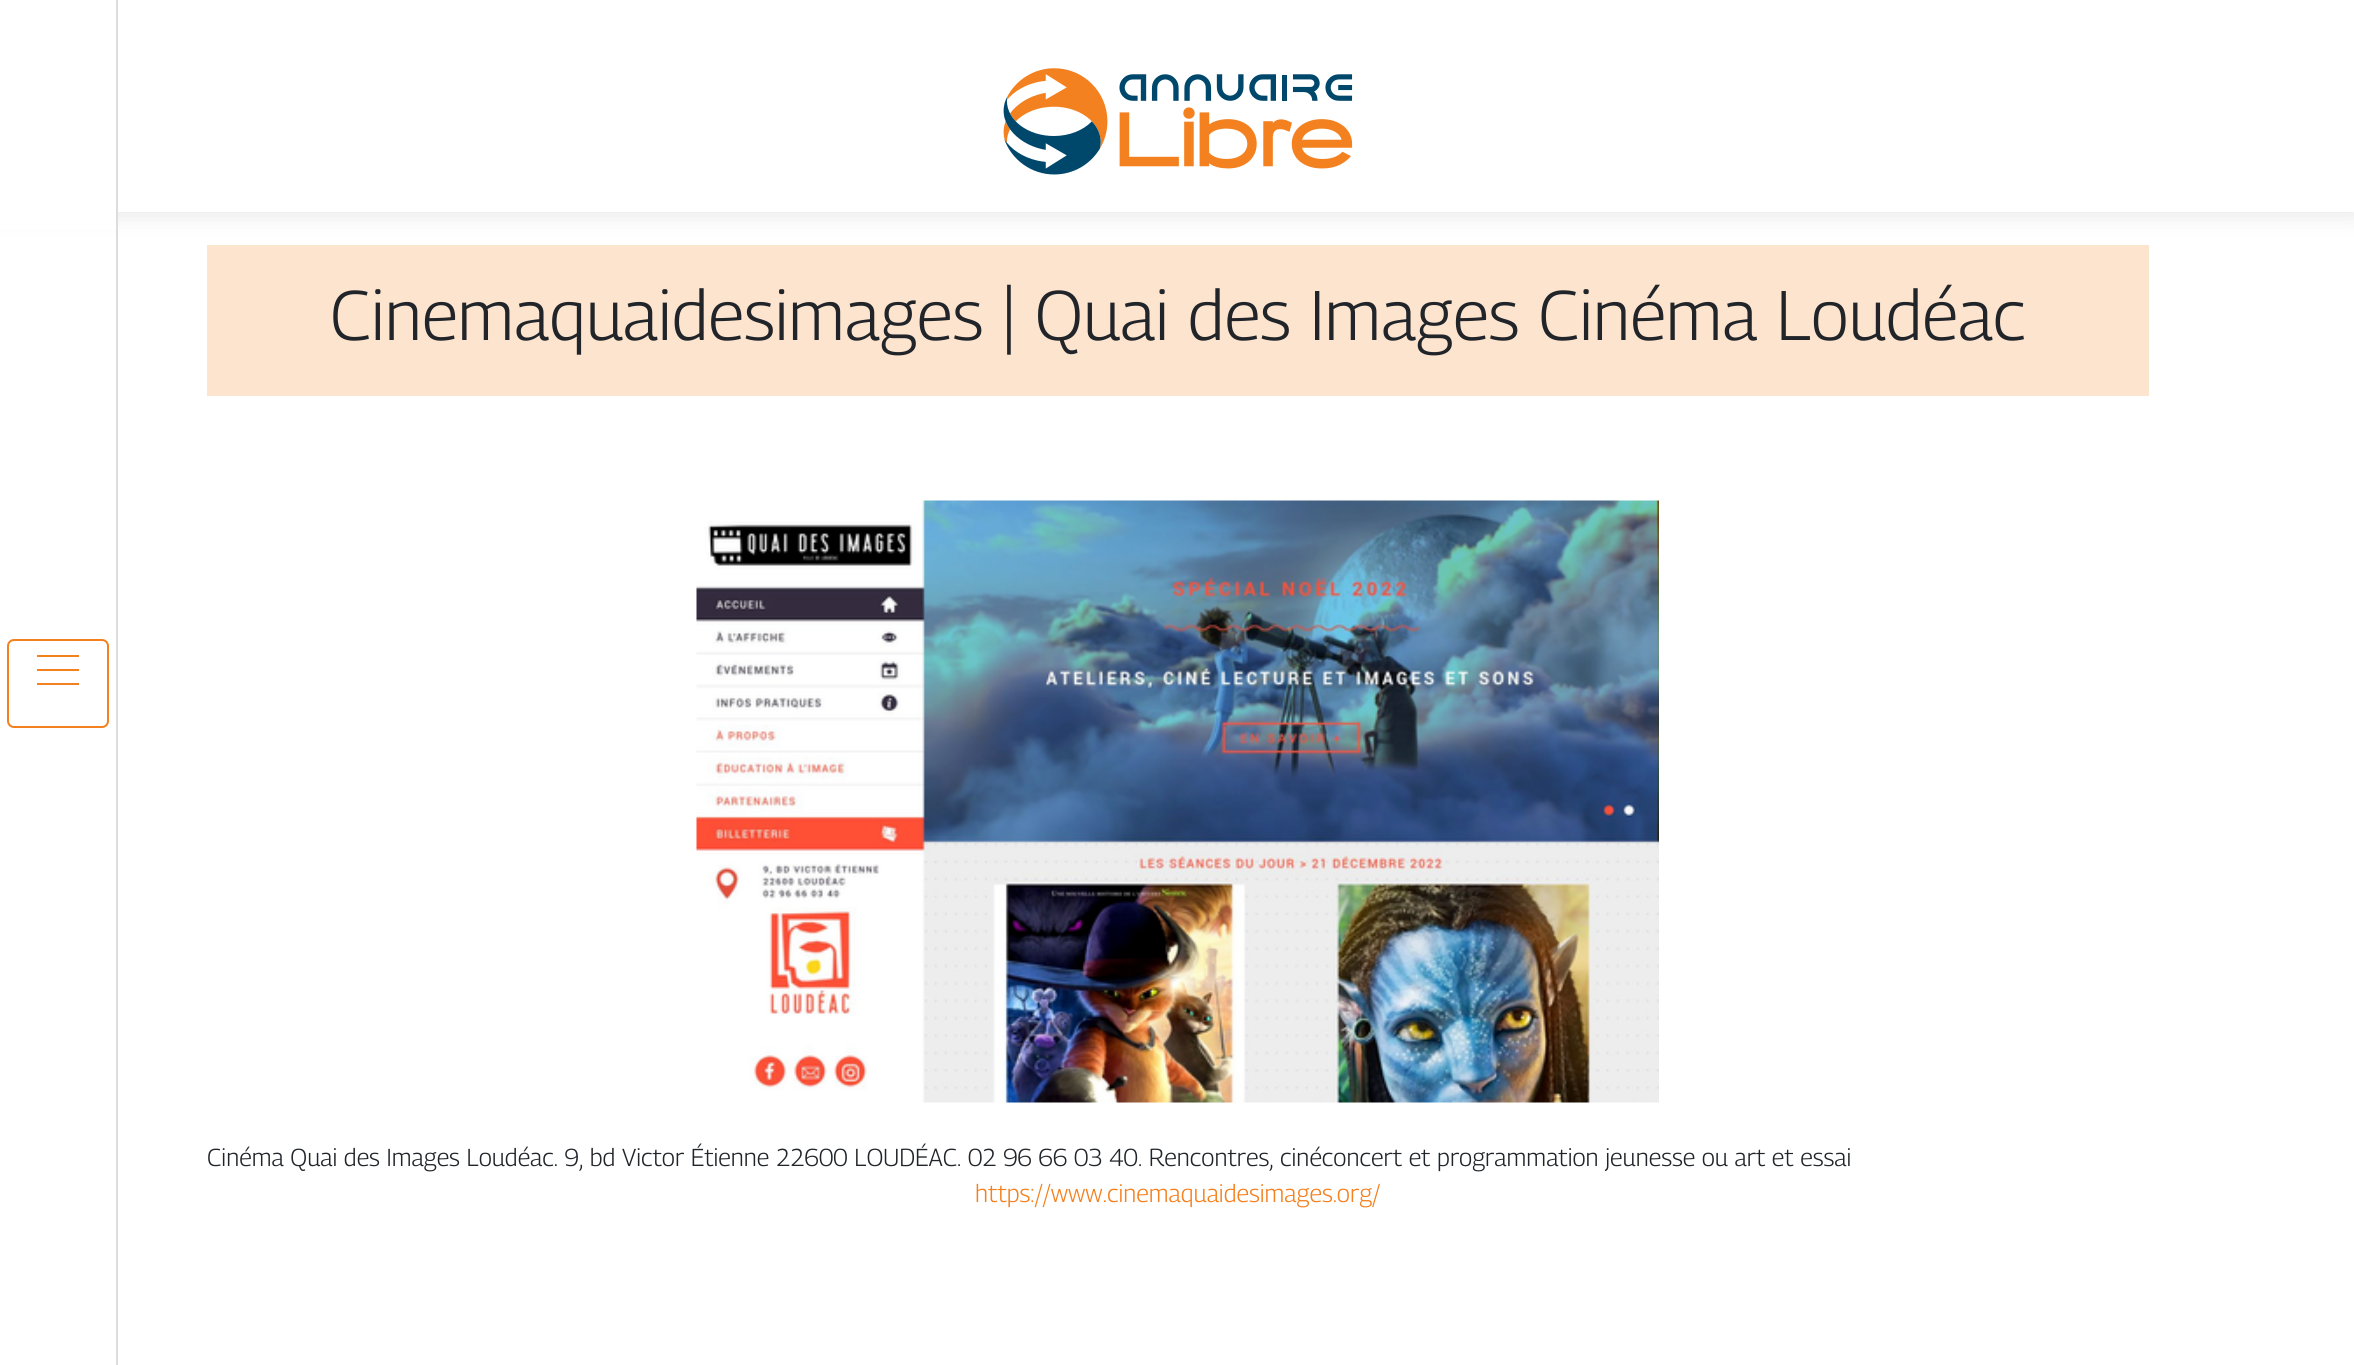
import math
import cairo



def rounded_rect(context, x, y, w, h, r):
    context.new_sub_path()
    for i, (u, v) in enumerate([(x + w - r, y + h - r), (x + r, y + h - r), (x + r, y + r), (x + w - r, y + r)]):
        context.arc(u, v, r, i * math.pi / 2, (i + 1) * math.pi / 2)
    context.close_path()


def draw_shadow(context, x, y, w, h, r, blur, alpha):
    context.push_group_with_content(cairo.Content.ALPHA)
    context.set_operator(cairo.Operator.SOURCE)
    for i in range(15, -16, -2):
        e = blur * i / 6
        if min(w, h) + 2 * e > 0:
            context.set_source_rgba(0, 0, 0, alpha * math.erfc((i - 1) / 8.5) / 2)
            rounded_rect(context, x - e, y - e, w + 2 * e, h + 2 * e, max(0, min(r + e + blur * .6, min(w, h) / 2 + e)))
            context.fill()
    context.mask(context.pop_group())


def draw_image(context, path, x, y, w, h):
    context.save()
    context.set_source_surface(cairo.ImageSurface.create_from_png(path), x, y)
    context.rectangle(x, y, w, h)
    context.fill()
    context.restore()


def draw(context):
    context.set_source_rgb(1, 1, 1)
    context.paint()
    context.set_source_rgb(253 / 255, 228 / 255, 207 / 255)
    context.rectangle(207, 245, 1942, 151)
    context.fill()
    context.set_source_rgb(0, 0, 0)
    draw_shadow(context, 0, 4, 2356, 211, 0, 11.5, 0.1)
    context.set_source_rgb(1, 1, 1)
    context.rectangle(118, 0, 2236, 212)
    context.fill()
    context.rectangle(0, 0, 116, 230)
    context.fill()
    context.set_source_rgb(221 / 255, 221 / 255, 221 / 255)
    context.rectangle(116, 0, 2, 1365)
    context.fill()
    rounded_rect(context, 8, 640, 100, 87, 6)
    context.set_source_rgb(244 / 255, 129 / 255, 32 / 255)
    context.stroke()
    context.rectangle(37, 655, 42, 2)
    context.fill()
    context.rectangle(37, 669, 42, 2)
    context.fill()
    context.rectangle(37, 683, 42, 2)
    context.fill()
    draw_image(context, "images/1.png", 1003, 68, 350, 107)
    draw_image(context, "images/2.png", 696, 500, 963, 603)
    context.select_font_face("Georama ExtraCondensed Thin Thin")
    context.set_font_size(70)
    context.set_source_rgb(33 / 255, 37 / 255, 41 / 255)
    context.move_to(330, 340)
    context.show_text("Cinemaquaidesimages | Quai des Images Cinéma Loudéac")
    context.set_font_size(24.5)
    context.move_to(207, 1166)
    context.show_text("Cinéma Quai des Images Loudéac. 9, bd Victor Étienne 22600 LOUDÉAC. 02 96 66 03 40. Rencontres, cinéconcert et programmation jeunesse ou art et essai")
    context.set_source_rgb(244 / 255, 129 / 255, 32 / 255)
    context.move_to(975, 1202)
    context.show_text("https://www.cinemaquaidesimages.org/")


surface = cairo.ImageSurface(cairo.Format.RGB24, 2354, 1365)
context = cairo.Context(surface)
options = cairo.FontOptions()
options.set_hint_metrics(cairo.HintMetrics.OFF)
options.set_hint_style(cairo.HintStyle.NONE)
context.set_font_options(options)
context.set_miter_limit(4)
draw(context)
surface.write_to_png("out.png")
